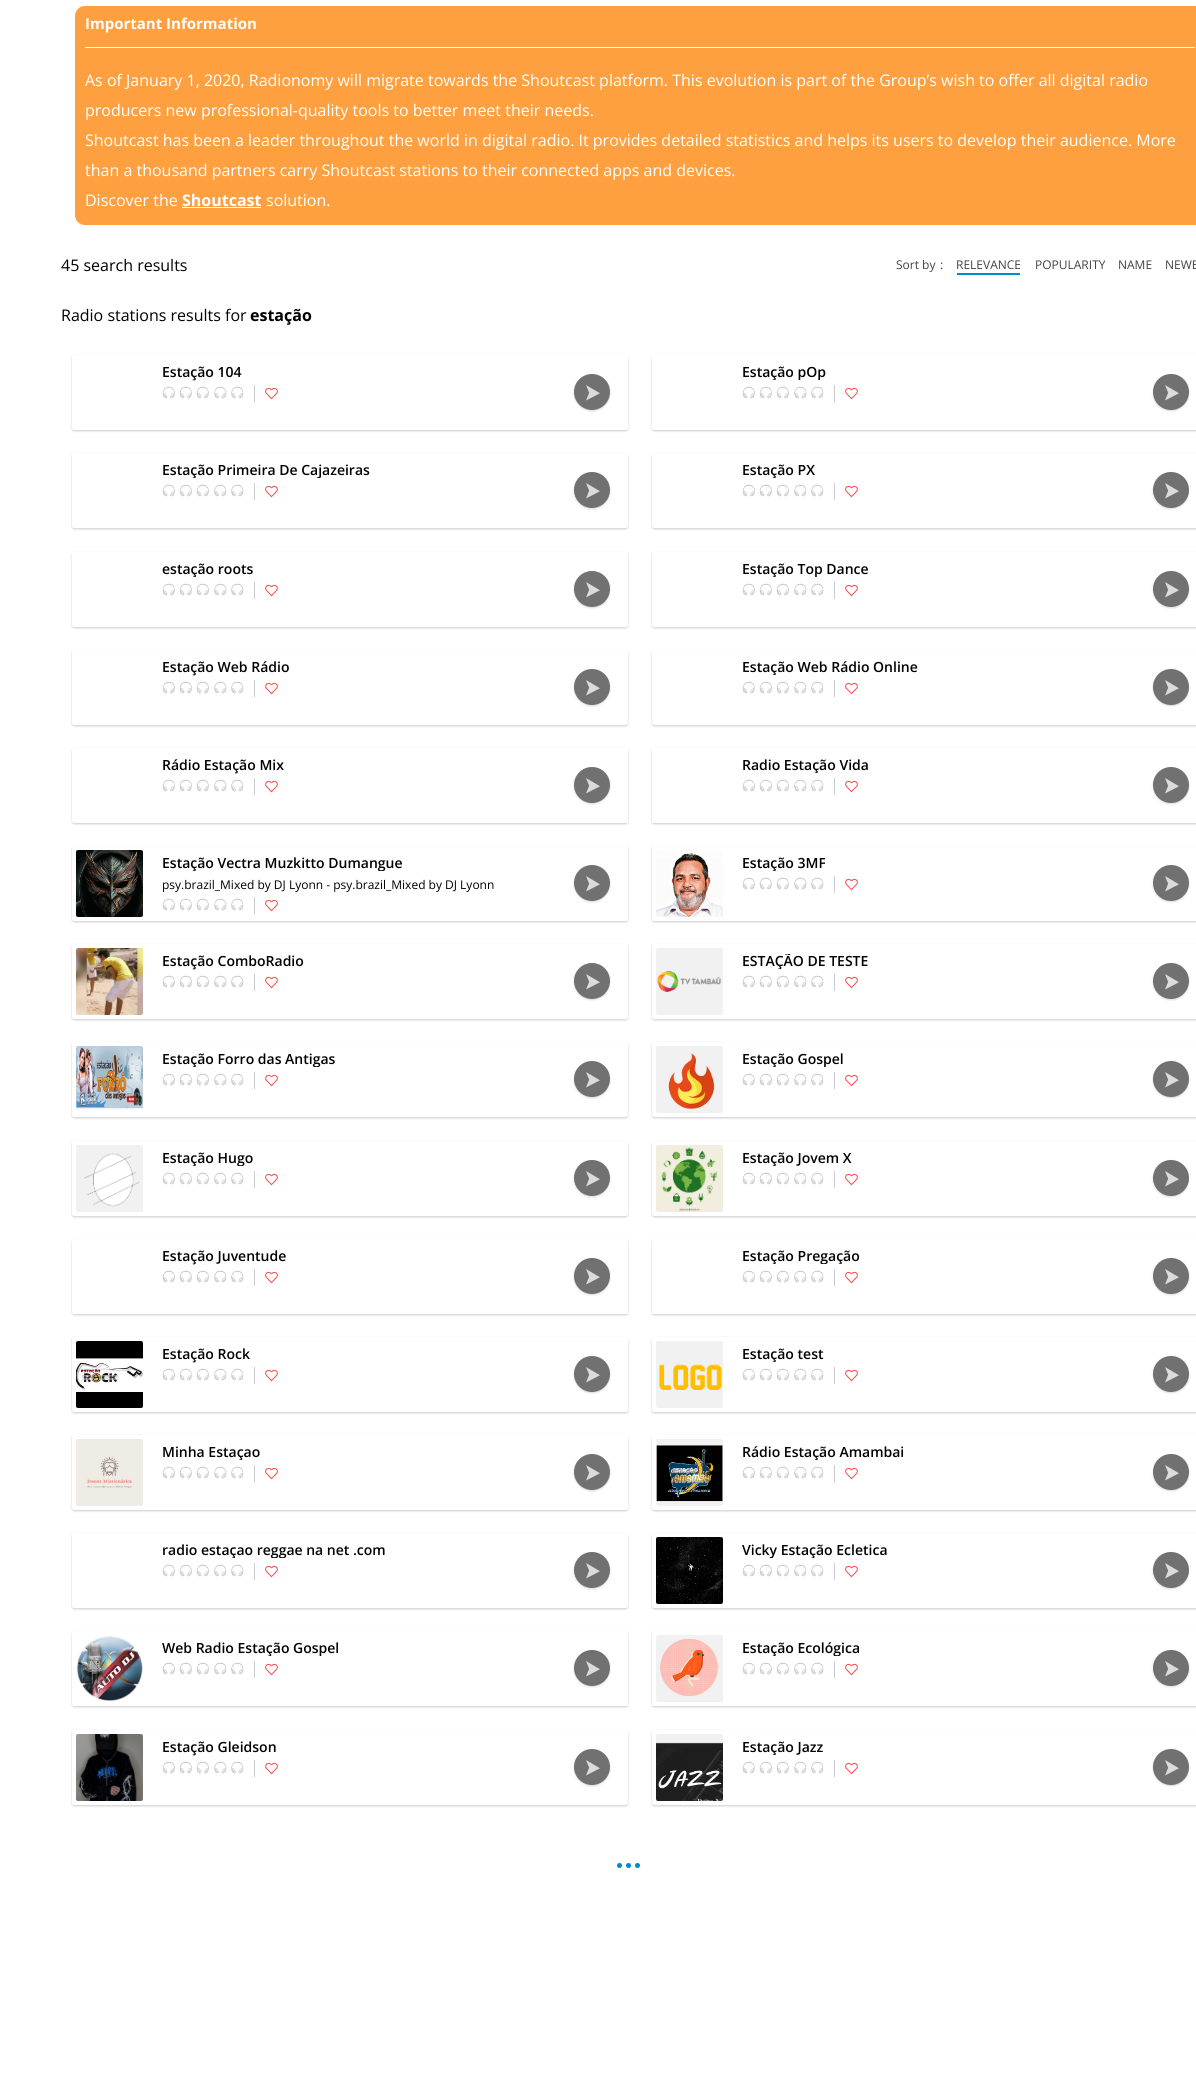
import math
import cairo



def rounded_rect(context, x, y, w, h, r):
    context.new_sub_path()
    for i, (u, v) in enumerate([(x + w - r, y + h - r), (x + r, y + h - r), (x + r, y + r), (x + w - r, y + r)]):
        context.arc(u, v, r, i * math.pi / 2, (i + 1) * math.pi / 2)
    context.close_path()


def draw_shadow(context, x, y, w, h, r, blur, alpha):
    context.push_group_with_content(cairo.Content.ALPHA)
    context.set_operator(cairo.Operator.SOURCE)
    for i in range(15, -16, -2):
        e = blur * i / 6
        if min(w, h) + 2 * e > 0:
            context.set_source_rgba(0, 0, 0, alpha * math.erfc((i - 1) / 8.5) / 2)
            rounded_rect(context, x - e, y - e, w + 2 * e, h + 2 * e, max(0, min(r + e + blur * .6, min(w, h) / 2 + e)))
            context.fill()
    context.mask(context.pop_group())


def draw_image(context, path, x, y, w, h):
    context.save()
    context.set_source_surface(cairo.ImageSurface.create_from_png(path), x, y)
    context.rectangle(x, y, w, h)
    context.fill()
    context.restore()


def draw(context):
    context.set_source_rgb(1, 1, 1)
    context.paint()
    context.set_source_rgb(1, 160 / 255, 64 / 255)
    rounded_rect(context, 75, 6, 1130, 219, 10)
    context.fill()
    context.set_source_rgb(1, 1, 1)
    context.rectangle(85, 47, 1110, 1)
    context.fill()
    context.rectangle(182, 207, 79, 1)
    context.fill()
    context.set_source_rgb(0, 137 / 255, 203 / 255)
    context.rectangle(957, 273, 63, 2)
    context.fill()
    context.set_source_rgb(0, 0, 0)
    draw_shadow(context, 72, 356, 556, 75, 2, 1, 0.2)
    context.set_source_rgb(1, 1, 1)
    rounded_rect(context, 72, 355, 556, 75, 2)
    context.fill()
    draw_image(context, "images/1.png", 162, 386, 82, 13)
    context.set_source_rgb(204 / 255, 204 / 255, 204 / 255)
    context.rectangle(254, 385, 1, 17)
    context.fill()
    draw_image(context, "images/2.png", 265, 387, 13, 13)
    context.set_source_rgb(64 / 255, 64 / 255, 64 / 255)
    draw_shadow(context, 574, 375, 36, 36, 18, 1, 0.2)
    context.set_source_rgb(113 / 255, 113 / 255, 113 / 255)
    context.arc(592, 392, 18, 0, 2 * math.pi)
    context.fill()
    draw_image(context, "images/3.png", 586, 385, 14, 16)
    context.set_source_rgb(0, 0, 0)
    draw_shadow(context, 652, 356, 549, 75, 2, 1, 0.2)
    context.set_source_rgb(1, 1, 1)
    rounded_rect(context, 652, 355, 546, 75, 2)
    context.fill()
    draw_image(context, "images/1.png", 742, 386, 82, 13)
    context.set_source_rgb(204 / 255, 204 / 255, 204 / 255)
    context.rectangle(834, 385, 1, 17)
    context.fill()
    draw_image(context, "images/2.png", 845, 387, 13, 13)
    context.set_source_rgb(64 / 255, 64 / 255, 64 / 255)
    draw_shadow(context, 1153, 375, 36, 36, 18, 1, 0.2)
    context.set_source_rgb(113 / 255, 113 / 255, 113 / 255)
    context.arc(1171, 392, 18, 0, 2 * math.pi)
    context.fill()
    draw_image(context, "images/3.png", 1165, 385, 14, 16)
    context.set_source_rgb(0, 0, 0)
    draw_shadow(context, 72, 454, 556, 75, 2, 1, 0.2)
    context.set_source_rgb(1, 1, 1)
    rounded_rect(context, 72, 453, 556, 75, 2)
    context.fill()
    draw_image(context, "images/1.png", 162, 484, 82, 13)
    context.set_source_rgb(204 / 255, 204 / 255, 204 / 255)
    context.rectangle(254, 483, 1, 17)
    context.fill()
    draw_image(context, "images/2.png", 265, 485, 13, 13)
    context.set_source_rgb(64 / 255, 64 / 255, 64 / 255)
    draw_shadow(context, 574, 473, 36, 36, 18, 1, 0.2)
    context.set_source_rgb(113 / 255, 113 / 255, 113 / 255)
    context.arc(592, 490, 18, 0, 2 * math.pi)
    context.fill()
    draw_image(context, "images/3.png", 586, 483, 14, 16)
    context.set_source_rgb(0, 0, 0)
    draw_shadow(context, 652, 454, 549, 75, 2, 1, 0.2)
    context.set_source_rgb(1, 1, 1)
    rounded_rect(context, 652, 453, 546, 75, 2)
    context.fill()
    draw_image(context, "images/1.png", 742, 484, 82, 13)
    context.set_source_rgb(204 / 255, 204 / 255, 204 / 255)
    context.rectangle(834, 483, 1, 17)
    context.fill()
    draw_image(context, "images/2.png", 845, 485, 13, 13)
    context.set_source_rgb(64 / 255, 64 / 255, 64 / 255)
    draw_shadow(context, 1153, 473, 36, 36, 18, 1, 0.2)
    context.set_source_rgb(113 / 255, 113 / 255, 113 / 255)
    context.arc(1171, 490, 18, 0, 2 * math.pi)
    context.fill()
    draw_image(context, "images/3.png", 1165, 483, 14, 16)
    context.set_source_rgb(0, 0, 0)
    draw_shadow(context, 72, 553, 556, 75, 2, 1, 0.2)
    context.set_source_rgb(1, 1, 1)
    rounded_rect(context, 72, 552, 556, 75, 2)
    context.fill()
    draw_image(context, "images/1.png", 162, 583, 82, 13)
    context.set_source_rgb(204 / 255, 204 / 255, 204 / 255)
    context.rectangle(254, 582, 1, 17)
    context.fill()
    draw_image(context, "images/2.png", 265, 584, 13, 13)
    context.set_source_rgb(64 / 255, 64 / 255, 64 / 255)
    draw_shadow(context, 574, 572, 36, 36, 18, 1, 0.2)
    context.set_source_rgb(113 / 255, 113 / 255, 113 / 255)
    context.arc(592, 589, 18, 0, 2 * math.pi)
    context.fill()
    draw_image(context, "images/3.png", 586, 582, 14, 16)
    context.set_source_rgb(0, 0, 0)
    draw_shadow(context, 652, 553, 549, 75, 2, 1, 0.2)
    context.set_source_rgb(1, 1, 1)
    rounded_rect(context, 652, 552, 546, 75, 2)
    context.fill()
    draw_image(context, "images/1.png", 742, 583, 82, 13)
    context.set_source_rgb(204 / 255, 204 / 255, 204 / 255)
    context.rectangle(834, 582, 1, 17)
    context.fill()
    draw_image(context, "images/2.png", 845, 584, 13, 13)
    context.set_source_rgb(64 / 255, 64 / 255, 64 / 255)
    draw_shadow(context, 1153, 572, 36, 36, 18, 1, 0.2)
    context.set_source_rgb(113 / 255, 113 / 255, 113 / 255)
    context.arc(1171, 589, 18, 0, 2 * math.pi)
    context.fill()
    draw_image(context, "images/3.png", 1165, 582, 14, 16)
    context.set_source_rgb(0, 0, 0)
    draw_shadow(context, 72, 651, 556, 75, 2, 1, 0.2)
    context.set_source_rgb(1, 1, 1)
    rounded_rect(context, 72, 650, 556, 75, 2)
    context.fill()
    draw_image(context, "images/1.png", 162, 681, 82, 13)
    context.set_source_rgb(204 / 255, 204 / 255, 204 / 255)
    context.rectangle(254, 680, 1, 17)
    context.fill()
    draw_image(context, "images/2.png", 265, 682, 13, 13)
    context.set_source_rgb(64 / 255, 64 / 255, 64 / 255)
    draw_shadow(context, 574, 670, 36, 36, 18, 1, 0.2)
    context.set_source_rgb(113 / 255, 113 / 255, 113 / 255)
    context.arc(592, 687, 18, 0, 2 * math.pi)
    context.fill()
    draw_image(context, "images/3.png", 586, 680, 14, 16)
    context.set_source_rgb(0, 0, 0)
    draw_shadow(context, 652, 651, 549, 75, 2, 1, 0.2)
    context.set_source_rgb(1, 1, 1)
    rounded_rect(context, 652, 650, 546, 75, 2)
    context.fill()
    draw_image(context, "images/1.png", 742, 681, 82, 13)
    context.set_source_rgb(204 / 255, 204 / 255, 204 / 255)
    context.rectangle(834, 680, 1, 17)
    context.fill()
    draw_image(context, "images/2.png", 845, 682, 13, 13)
    context.set_source_rgb(64 / 255, 64 / 255, 64 / 255)
    draw_shadow(context, 1153, 670, 36, 36, 18, 1, 0.2)
    context.set_source_rgb(113 / 255, 113 / 255, 113 / 255)
    context.arc(1171, 687, 18, 0, 2 * math.pi)
    context.fill()
    draw_image(context, "images/3.png", 1165, 680, 14, 16)
    context.set_source_rgb(0, 0, 0)
    draw_shadow(context, 72, 749, 556, 75, 2, 1, 0.2)
    context.set_source_rgb(1, 1, 1)
    rounded_rect(context, 72, 748, 556, 75, 2)
    context.fill()
    draw_image(context, "images/1.png", 162, 779, 82, 13)
    context.set_source_rgb(204 / 255, 204 / 255, 204 / 255)
    context.rectangle(254, 778, 1, 17)
    context.fill()
    draw_image(context, "images/2.png", 265, 780, 13, 13)
    context.set_source_rgb(64 / 255, 64 / 255, 64 / 255)
    draw_shadow(context, 574, 768, 36, 36, 18, 1, 0.2)
    context.set_source_rgb(113 / 255, 113 / 255, 113 / 255)
    context.arc(592, 785, 18, 0, 2 * math.pi)
    context.fill()
    draw_image(context, "images/3.png", 586, 778, 14, 16)
    context.set_source_rgb(0, 0, 0)
    draw_shadow(context, 652, 749, 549, 75, 2, 1, 0.2)
    context.set_source_rgb(1, 1, 1)
    rounded_rect(context, 652, 748, 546, 75, 2)
    context.fill()
    draw_image(context, "images/1.png", 742, 779, 82, 13)
    context.set_source_rgb(204 / 255, 204 / 255, 204 / 255)
    context.rectangle(834, 778, 1, 17)
    context.fill()
    draw_image(context, "images/2.png", 845, 780, 13, 13)
    context.set_source_rgb(64 / 255, 64 / 255, 64 / 255)
    draw_shadow(context, 1153, 768, 36, 36, 18, 1, 0.2)
    context.set_source_rgb(113 / 255, 113 / 255, 113 / 255)
    context.arc(1171, 785, 18, 0, 2 * math.pi)
    context.fill()
    draw_image(context, "images/3.png", 1165, 778, 14, 16)
    context.set_source_rgb(0, 0, 0)
    draw_shadow(context, 72, 847, 556, 75, 2, 1, 0.2)
    context.set_source_rgb(1, 1, 1)
    rounded_rect(context, 72, 846, 556, 75, 2)
    context.fill()
    draw_image(context, "images/4.png", 76, 850, 67, 67)
    draw_image(context, "images/1.png", 162, 898, 82, 13)
    context.set_source_rgb(204 / 255, 204 / 255, 204 / 255)
    context.rectangle(254, 897, 1, 17)
    context.fill()
    draw_image(context, "images/2.png", 265, 899, 13, 13)
    context.set_source_rgb(64 / 255, 64 / 255, 64 / 255)
    draw_shadow(context, 574, 866, 36, 36, 18, 1, 0.2)
    context.set_source_rgb(113 / 255, 113 / 255, 113 / 255)
    context.arc(592, 883, 18, 0, 2 * math.pi)
    context.fill()
    draw_image(context, "images/3.png", 586, 876, 14, 16)
    context.set_source_rgb(0, 0, 0)
    draw_shadow(context, 652, 847, 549, 75, 2, 1, 0.2)
    context.set_source_rgb(1, 1, 1)
    rounded_rect(context, 652, 846, 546, 75, 2)
    context.fill()
    draw_image(context, "images/5.png", 656, 850, 67, 67)
    draw_image(context, "images/1.png", 742, 877, 82, 13)
    context.set_source_rgb(204 / 255, 204 / 255, 204 / 255)
    context.rectangle(834, 876, 1, 17)
    context.fill()
    draw_image(context, "images/2.png", 845, 878, 13, 13)
    context.set_source_rgb(64 / 255, 64 / 255, 64 / 255)
    draw_shadow(context, 1153, 866, 36, 36, 18, 1, 0.2)
    context.set_source_rgb(113 / 255, 113 / 255, 113 / 255)
    context.arc(1171, 883, 18, 0, 2 * math.pi)
    context.fill()
    draw_image(context, "images/3.png", 1165, 876, 14, 16)
    context.set_source_rgb(0, 0, 0)
    draw_shadow(context, 72, 945, 556, 75, 2, 1, 0.2)
    context.set_source_rgb(1, 1, 1)
    rounded_rect(context, 72, 944, 556, 75, 2)
    context.fill()
    draw_image(context, "images/6.png", 76, 948, 67, 67)
    draw_image(context, "images/1.png", 162, 975, 82, 13)
    context.set_source_rgb(204 / 255, 204 / 255, 204 / 255)
    context.rectangle(254, 974, 1, 17)
    context.fill()
    draw_image(context, "images/2.png", 265, 976, 13, 13)
    context.set_source_rgb(64 / 255, 64 / 255, 64 / 255)
    draw_shadow(context, 574, 964, 36, 36, 18, 1, 0.2)
    context.set_source_rgb(113 / 255, 113 / 255, 113 / 255)
    context.arc(592, 981, 18, 0, 2 * math.pi)
    context.fill()
    draw_image(context, "images/3.png", 586, 974, 14, 16)
    context.set_source_rgb(0, 0, 0)
    draw_shadow(context, 652, 945, 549, 75, 2, 1, 0.2)
    context.set_source_rgb(1, 1, 1)
    rounded_rect(context, 652, 944, 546, 75, 2)
    context.fill()
    context.set_source_rgb(241 / 255, 241 / 255, 241 / 255)
    rounded_rect(context, 656, 948, 67, 67, 2)
    context.fill()
    draw_image(context, "images/7.png", 657, 970, 64, 22)
    draw_image(context, "images/1.png", 742, 975, 82, 13)
    context.set_source_rgb(204 / 255, 204 / 255, 204 / 255)
    context.rectangle(834, 974, 1, 17)
    context.fill()
    draw_image(context, "images/2.png", 845, 976, 13, 13)
    context.set_source_rgb(64 / 255, 64 / 255, 64 / 255)
    draw_shadow(context, 1153, 964, 36, 36, 18, 1, 0.2)
    context.set_source_rgb(113 / 255, 113 / 255, 113 / 255)
    context.arc(1171, 981, 18, 0, 2 * math.pi)
    context.fill()
    draw_image(context, "images/3.png", 1165, 974, 14, 16)
    context.set_source_rgb(0, 0, 0)
    draw_shadow(context, 72, 1043, 556, 75, 2, 1, 0.2)
    context.set_source_rgb(1, 1, 1)
    rounded_rect(context, 72, 1042, 556, 75, 2)
    context.fill()
    draw_image(context, "images/8.png", 76, 1046, 67, 67)
    draw_image(context, "images/1.png", 162, 1073, 82, 13)
    context.set_source_rgb(204 / 255, 204 / 255, 204 / 255)
    context.rectangle(254, 1072, 1, 17)
    context.fill()
    draw_image(context, "images/2.png", 265, 1074, 13, 13)
    context.set_source_rgb(64 / 255, 64 / 255, 64 / 255)
    draw_shadow(context, 574, 1062, 36, 36, 18, 1, 0.2)
    context.set_source_rgb(113 / 255, 113 / 255, 113 / 255)
    context.arc(592, 1079, 18, 0, 2 * math.pi)
    context.fill()
    draw_image(context, "images/3.png", 586, 1072, 14, 16)
    context.set_source_rgb(0, 0, 0)
    draw_shadow(context, 652, 1043, 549, 75, 2, 1, 0.2)
    context.set_source_rgb(1, 1, 1)
    rounded_rect(context, 652, 1042, 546, 75, 2)
    context.fill()
    context.set_source_rgb(241 / 255, 241 / 255, 241 / 255)
    rounded_rect(context, 656, 1046, 67, 67, 2)
    context.fill()
    draw_image(context, "images/9.png", 668, 1053, 47, 57)
    draw_image(context, "images/1.png", 742, 1073, 82, 13)
    context.set_source_rgb(204 / 255, 204 / 255, 204 / 255)
    context.rectangle(834, 1072, 1, 17)
    context.fill()
    draw_image(context, "images/2.png", 845, 1074, 13, 13)
    context.set_source_rgb(64 / 255, 64 / 255, 64 / 255)
    draw_shadow(context, 1153, 1062, 36, 36, 18, 1, 0.2)
    context.set_source_rgb(113 / 255, 113 / 255, 113 / 255)
    context.arc(1171, 1079, 18, 0, 2 * math.pi)
    context.fill()
    draw_image(context, "images/3.png", 1165, 1072, 14, 16)
    context.set_source_rgb(0, 0, 0)
    draw_shadow(context, 72, 1142, 556, 75, 2, 1, 0.2)
    context.set_source_rgb(1, 1, 1)
    rounded_rect(context, 72, 1141, 556, 75, 2)
    context.fill()
    context.set_source_rgb(241 / 255, 241 / 255, 241 / 255)
    rounded_rect(context, 76, 1145, 67, 67, 2)
    context.fill()
    draw_image(context, "images/10.png", 84, 1153, 56, 54)
    draw_image(context, "images/1.png", 162, 1172, 82, 13)
    context.set_source_rgb(204 / 255, 204 / 255, 204 / 255)
    context.rectangle(254, 1171, 1, 17)
    context.fill()
    draw_image(context, "images/2.png", 265, 1173, 13, 13)
    context.set_source_rgb(64 / 255, 64 / 255, 64 / 255)
    draw_shadow(context, 574, 1161, 36, 36, 18, 1, 0.2)
    context.set_source_rgb(113 / 255, 113 / 255, 113 / 255)
    context.arc(592, 1178, 18, 0, 2 * math.pi)
    context.fill()
    draw_image(context, "images/3.png", 586, 1171, 14, 16)
    context.set_source_rgb(0, 0, 0)
    draw_shadow(context, 652, 1142, 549, 75, 2, 1, 0.2)
    context.set_source_rgb(1, 1, 1)
    rounded_rect(context, 652, 1141, 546, 75, 2)
    context.fill()
    draw_image(context, "images/11.png", 656, 1145, 67, 67)
    draw_image(context, "images/1.png", 742, 1172, 82, 13)
    context.set_source_rgb(204 / 255, 204 / 255, 204 / 255)
    context.rectangle(834, 1171, 1, 17)
    context.fill()
    draw_image(context, "images/2.png", 845, 1173, 13, 13)
    context.set_source_rgb(64 / 255, 64 / 255, 64 / 255)
    draw_shadow(context, 1153, 1161, 36, 36, 18, 1, 0.2)
    context.set_source_rgb(113 / 255, 113 / 255, 113 / 255)
    context.arc(1171, 1178, 18, 0, 2 * math.pi)
    context.fill()
    draw_image(context, "images/3.png", 1165, 1171, 14, 16)
    context.set_source_rgb(0, 0, 0)
    draw_shadow(context, 72, 1240, 556, 75, 2, 1, 0.2)
    context.set_source_rgb(1, 1, 1)
    rounded_rect(context, 72, 1239, 556, 75, 2)
    context.fill()
    draw_image(context, "images/1.png", 162, 1270, 82, 13)
    context.set_source_rgb(204 / 255, 204 / 255, 204 / 255)
    context.rectangle(254, 1269, 1, 17)
    context.fill()
    draw_image(context, "images/2.png", 265, 1271, 13, 13)
    context.set_source_rgb(64 / 255, 64 / 255, 64 / 255)
    draw_shadow(context, 574, 1259, 36, 36, 18, 1, 0.2)
    context.set_source_rgb(113 / 255, 113 / 255, 113 / 255)
    context.arc(592, 1276, 18, 0, 2 * math.pi)
    context.fill()
    draw_image(context, "images/3.png", 586, 1269, 14, 16)
    context.set_source_rgb(0, 0, 0)
    draw_shadow(context, 652, 1240, 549, 75, 2, 1, 0.2)
    context.set_source_rgb(1, 1, 1)
    rounded_rect(context, 652, 1239, 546, 75, 2)
    context.fill()
    draw_image(context, "images/1.png", 742, 1270, 82, 13)
    context.set_source_rgb(204 / 255, 204 / 255, 204 / 255)
    context.rectangle(834, 1269, 1, 17)
    context.fill()
    draw_image(context, "images/2.png", 845, 1271, 13, 13)
    context.set_source_rgb(64 / 255, 64 / 255, 64 / 255)
    draw_shadow(context, 1153, 1259, 36, 36, 18, 1, 0.2)
    context.set_source_rgb(113 / 255, 113 / 255, 113 / 255)
    context.arc(1171, 1276, 18, 0, 2 * math.pi)
    context.fill()
    draw_image(context, "images/3.png", 1165, 1269, 14, 16)
    context.set_source_rgb(0, 0, 0)
    draw_shadow(context, 72, 1338, 556, 75, 2, 1, 0.2)
    context.set_source_rgb(1, 1, 1)
    rounded_rect(context, 72, 1337, 556, 75, 2)
    context.fill()
    draw_image(context, "images/12.png", 76, 1341, 67, 67)
    draw_image(context, "images/1.png", 162, 1368, 82, 13)
    context.set_source_rgb(204 / 255, 204 / 255, 204 / 255)
    context.rectangle(254, 1367, 1, 17)
    context.fill()
    draw_image(context, "images/2.png", 265, 1369, 13, 13)
    context.set_source_rgb(64 / 255, 64 / 255, 64 / 255)
    draw_shadow(context, 574, 1357, 36, 36, 18, 1, 0.2)
    context.set_source_rgb(113 / 255, 113 / 255, 113 / 255)
    context.arc(592, 1374, 18, 0, 2 * math.pi)
    context.fill()
    draw_image(context, "images/3.png", 586, 1367, 14, 16)
    context.set_source_rgb(0, 0, 0)
    draw_shadow(context, 652, 1338, 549, 75, 2, 1, 0.2)
    context.set_source_rgb(1, 1, 1)
    rounded_rect(context, 652, 1337, 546, 75, 2)
    context.fill()
    context.set_source_rgb(241 / 255, 241 / 255, 241 / 255)
    rounded_rect(context, 656, 1341, 67, 67, 2)
    context.fill()
    draw_image(context, "images/13.png", 659, 1364, 64, 26)
    draw_image(context, "images/1.png", 742, 1368, 82, 13)
    context.set_source_rgb(204 / 255, 204 / 255, 204 / 255)
    context.rectangle(834, 1367, 1, 17)
    context.fill()
    draw_image(context, "images/2.png", 845, 1369, 13, 13)
    context.set_source_rgb(64 / 255, 64 / 255, 64 / 255)
    draw_shadow(context, 1153, 1357, 36, 36, 18, 1, 0.2)
    context.set_source_rgb(113 / 255, 113 / 255, 113 / 255)
    context.arc(1171, 1374, 18, 0, 2 * math.pi)
    context.fill()
    draw_image(context, "images/3.png", 1165, 1367, 14, 16)
    context.set_source_rgb(0, 0, 0)
    draw_shadow(context, 72, 1436, 556, 75, 2, 1, 0.2)
    context.set_source_rgb(1, 1, 1)
    rounded_rect(context, 72, 1435, 556, 75, 2)
    context.fill()
    draw_image(context, "images/14.png", 76, 1439, 67, 67)
    draw_image(context, "images/1.png", 162, 1466, 82, 13)
    context.set_source_rgb(204 / 255, 204 / 255, 204 / 255)
    context.rectangle(254, 1465, 1, 17)
    context.fill()
    draw_image(context, "images/2.png", 265, 1467, 13, 13)
    context.set_source_rgb(64 / 255, 64 / 255, 64 / 255)
    draw_shadow(context, 574, 1455, 36, 36, 18, 1, 0.2)
    context.set_source_rgb(113 / 255, 113 / 255, 113 / 255)
    context.arc(592, 1472, 18, 0, 2 * math.pi)
    context.fill()
    draw_image(context, "images/3.png", 586, 1465, 14, 16)
    context.set_source_rgb(0, 0, 0)
    draw_shadow(context, 652, 1436, 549, 75, 2, 1, 0.2)
    context.set_source_rgb(1, 1, 1)
    rounded_rect(context, 652, 1435, 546, 75, 2)
    context.fill()
    context.set_source_rgb(241 / 255, 241 / 255, 241 / 255)
    rounded_rect(context, 656, 1439, 67, 67, 2)
    context.fill()
    draw_image(context, "images/15.png", 656, 1445, 67, 57)
    draw_image(context, "images/1.png", 742, 1466, 82, 13)
    context.set_source_rgb(204 / 255, 204 / 255, 204 / 255)
    context.rectangle(834, 1465, 1, 17)
    context.fill()
    draw_image(context, "images/2.png", 845, 1467, 13, 13)
    context.set_source_rgb(64 / 255, 64 / 255, 64 / 255)
    draw_shadow(context, 1153, 1455, 36, 36, 18, 1, 0.2)
    context.set_source_rgb(113 / 255, 113 / 255, 113 / 255)
    context.arc(1171, 1472, 18, 0, 2 * math.pi)
    context.fill()
    draw_image(context, "images/3.png", 1165, 1465, 14, 16)
    context.set_source_rgb(0, 0, 0)
    draw_shadow(context, 72, 1534, 556, 75, 2, 1, 0.2)
    context.set_source_rgb(1, 1, 1)
    rounded_rect(context, 72, 1533, 556, 75, 2)
    context.fill()
    draw_image(context, "images/1.png", 162, 1564, 82, 13)
    context.set_source_rgb(204 / 255, 204 / 255, 204 / 255)
    context.rectangle(254, 1563, 1, 17)
    context.fill()
    draw_image(context, "images/2.png", 265, 1565, 13, 13)
    context.set_source_rgb(64 / 255, 64 / 255, 64 / 255)
    draw_shadow(context, 574, 1553, 36, 36, 18, 1, 0.2)
    context.set_source_rgb(113 / 255, 113 / 255, 113 / 255)
    context.arc(592, 1570, 18, 0, 2 * math.pi)
    context.fill()
    draw_image(context, "images/3.png", 586, 1563, 14, 16)
    context.set_source_rgb(0, 0, 0)
    draw_shadow(context, 652, 1534, 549, 75, 2, 1, 0.2)
    context.set_source_rgb(1, 1, 1)
    rounded_rect(context, 652, 1533, 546, 75, 2)
    context.fill()
    draw_image(context, "images/16.png", 656, 1537, 67, 67)
    draw_image(context, "images/1.png", 742, 1564, 82, 13)
    context.set_source_rgb(204 / 255, 204 / 255, 204 / 255)
    context.rectangle(834, 1563, 1, 17)
    context.fill()
    draw_image(context, "images/2.png", 845, 1565, 13, 13)
    context.set_source_rgb(64 / 255, 64 / 255, 64 / 255)
    draw_shadow(context, 1153, 1553, 36, 36, 18, 1, 0.2)
    context.set_source_rgb(113 / 255, 113 / 255, 113 / 255)
    context.arc(1171, 1570, 18, 0, 2 * math.pi)
    context.fill()
    draw_image(context, "images/3.png", 1165, 1563, 14, 16)
    context.set_source_rgb(0, 0, 0)
    draw_shadow(context, 72, 1632, 556, 75, 2, 1, 0.2)
    context.set_source_rgb(1, 1, 1)
    rounded_rect(context, 72, 1631, 556, 75, 2)
    context.fill()
    draw_image(context, "images/17.png", 76, 1635, 67, 67)
    draw_image(context, "images/1.png", 162, 1662, 82, 13)
    context.set_source_rgb(204 / 255, 204 / 255, 204 / 255)
    context.rectangle(254, 1661, 1, 17)
    context.fill()
    draw_image(context, "images/2.png", 265, 1663, 13, 13)
    context.set_source_rgb(64 / 255, 64 / 255, 64 / 255)
    draw_shadow(context, 574, 1651, 36, 36, 18, 1, 0.2)
    context.set_source_rgb(113 / 255, 113 / 255, 113 / 255)
    context.arc(592, 1668, 18, 0, 2 * math.pi)
    context.fill()
    draw_image(context, "images/3.png", 586, 1661, 14, 16)
    context.set_source_rgb(0, 0, 0)
    draw_shadow(context, 652, 1632, 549, 75, 2, 1, 0.2)
    context.set_source_rgb(1, 1, 1)
    rounded_rect(context, 652, 1631, 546, 75, 2)
    context.fill()
    context.set_source_rgb(241 / 255, 241 / 255, 241 / 255)
    rounded_rect(context, 656, 1635, 67, 67, 2)
    context.fill()
    draw_image(context, "images/18.png", 660, 1639, 59, 57)
    draw_image(context, "images/1.png", 742, 1662, 82, 13)
    context.set_source_rgb(204 / 255, 204 / 255, 204 / 255)
    context.rectangle(834, 1661, 1, 17)
    context.fill()
    draw_image(context, "images/2.png", 845, 1663, 13, 13)
    context.set_source_rgb(64 / 255, 64 / 255, 64 / 255)
    draw_shadow(context, 1153, 1651, 36, 36, 18, 1, 0.2)
    context.set_source_rgb(113 / 255, 113 / 255, 113 / 255)
    context.arc(1171, 1668, 18, 0, 2 * math.pi)
    context.fill()
    draw_image(context, "images/3.png", 1165, 1661, 14, 16)
    context.set_source_rgb(0, 0, 0)
    draw_shadow(context, 72, 1731, 556, 75, 2, 1, 0.2)
    context.set_source_rgb(1, 1, 1)
    rounded_rect(context, 72, 1730, 556, 75, 2)
    context.fill()
    draw_image(context, "images/19.png", 76, 1734, 67, 67)
    draw_image(context, "images/1.png", 162, 1761, 82, 13)
    context.set_source_rgb(204 / 255, 204 / 255, 204 / 255)
    context.rectangle(254, 1760, 1, 17)
    context.fill()
    draw_image(context, "images/2.png", 265, 1762, 13, 13)
    context.set_source_rgb(64 / 255, 64 / 255, 64 / 255)
    draw_shadow(context, 574, 1750, 36, 36, 18, 1, 0.2)
    context.set_source_rgb(113 / 255, 113 / 255, 113 / 255)
    context.arc(592, 1767, 18, 0, 2 * math.pi)
    context.fill()
    draw_image(context, "images/3.png", 586, 1760, 14, 16)
    context.set_source_rgb(0, 0, 0)
    draw_shadow(context, 652, 1731, 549, 75, 2, 1, 0.2)
    context.set_source_rgb(1, 1, 1)
    rounded_rect(context, 652, 1730, 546, 75, 2)
    context.fill()
    context.set_source_rgb(241 / 255, 241 / 255, 241 / 255)
    rounded_rect(context, 656, 1734, 67, 67, 2)
    context.fill()
    draw_image(context, "images/20.png", 656, 1742, 67, 59)
    draw_image(context, "images/1.png", 742, 1761, 82, 13)
    context.set_source_rgb(204 / 255, 204 / 255, 204 / 255)
    context.rectangle(834, 1760, 1, 17)
    context.fill()
    draw_image(context, "images/2.png", 845, 1762, 13, 13)
    context.set_source_rgb(64 / 255, 64 / 255, 64 / 255)
    draw_shadow(context, 1153, 1750, 36, 36, 18, 1, 0.2)
    context.set_source_rgb(113 / 255, 113 / 255, 113 / 255)
    context.arc(1171, 1767, 18, 0, 2 * math.pi)
    context.fill()
    draw_image(context, "images/3.png", 1165, 1760, 14, 16)
    context.set_source_rgb(0, 137 / 255, 203 / 255)
    context.arc(619.5, 1865.5, 2.5, 0, 2 * math.pi)
    context.fill()
    context.arc(628.5, 1865.5, 2.5, 0, 2 * math.pi)
    context.fill()
    context.arc(637.5, 1865.5, 2.5, 0, 2 * math.pi)
    context.fill()
    context.select_font_face("Open Sans", cairo.FontSlant.NORMAL, cairo.FontWeight.BOLD)
    context.set_font_size(15)
    context.set_source_rgb(1, 1, 1)
    context.move_to(85, 29)
    context.show_text("Important Information")
    context.select_font_face("Open Sans")
    context.set_font_size(16)
    context.move_to(85, 86)
    context.show_text("As of January 1, 2020, Radionomy will migrate towards the Shoutcast platform. This evolution is part of the Group’s wish to offer all digital radio")
    context.move_to(85, 116)
    context.show_text("producers new professional-quality tools to better meet their needs.")
    context.move_to(85, 146)
    context.show_text("Shoutcast has been a leader throughout the world in digital radio. It provides detailed statistics and helps its users to develop their audience. More")
    context.move_to(85, 176)
    context.show_text("than a thousand partners carry Shoutcast stations to their connected apps and devices.")
    context.move_to(85, 206)
    context.show_text("Discover the")
    context.select_font_face("Open Sans", cairo.FontSlant.NORMAL, cairo.FontWeight.BOLD)
    context.move_to(182, 206)
    context.show_text("Shoutcast")
    context.select_font_face("Open Sans")
    context.move_to(266, 206)
    context.show_text("solution.")
    context.set_source_rgb(0, 0, 0)
    context.move_to(61, 271)
    context.show_text("45 search results")
    context.set_font_size(12)
    context.set_source_rgb(66 / 255, 66 / 255, 66 / 255)
    context.move_to(896, 269)
    context.show_text("Sort by")
    context.move_to(940, 269)
    context.show_text(":")
    context.move_to(956, 269)
    context.show_text("RELEVANCE")
    context.move_to(1035, 269)
    context.show_text("POPULARITY")
    context.move_to(1118, 269)
    context.show_text("NAME")
    context.move_to(1165, 269)
    context.show_text("NEWE")
    context.set_font_size(16)
    context.set_source_rgb(0, 0, 0)
    context.move_to(61, 321)
    context.show_text("Radio stations results for")
    context.select_font_face("Open Sans", cairo.FontSlant.NORMAL, cairo.FontWeight.BOLD)
    context.move_to(250, 321)
    context.show_text("estação")
    context.select_font_face("Open Sans SemiBold")
    context.set_font_size(14)
    context.move_to(162, 377)
    context.show_text("Estação 104")
    context.save()
    context.rectangle(742, 365, 368, 15)
    context.clip()
    context.move_to(742, 377)
    context.show_text("Estação pOp")
    context.restore()
    context.save()
    context.rectangle(162, 463, 369, 15)
    context.clip()
    context.move_to(162, 475)
    context.show_text("Estação Primeira De Cajazeiras")
    context.restore()
    context.save()
    context.rectangle(742, 463, 368, 15)
    context.clip()
    context.move_to(742, 475)
    context.show_text("Estação PX")
    context.restore()
    context.save()
    context.rectangle(162, 562, 369, 15)
    context.clip()
    context.move_to(162, 574)
    context.show_text("estação roots")
    context.restore()
    context.save()
    context.rectangle(742, 562, 368, 15)
    context.clip()
    context.move_to(742, 574)
    context.show_text("Estação Top Dance")
    context.restore()
    context.move_to(162, 672)
    context.show_text("Estação Web Rádio")
    context.save()
    context.rectangle(742, 660, 368, 15)
    context.clip()
    context.move_to(742, 672)
    context.show_text("Estação Web Rádio Online")
    context.restore()
    context.move_to(162, 770)
    context.show_text("Rádio Estação Mix")
    context.save()
    context.rectangle(742, 758, 368, 15)
    context.clip()
    context.move_to(742, 770)
    context.show_text("Radio Estação Vida")
    context.restore()
    context.save()
    context.rectangle(162, 856, 369, 15)
    context.clip()
    context.move_to(162, 868)
    context.show_text("Estação Vectra Muzkitto Dumangue")
    context.restore()
    context.select_font_face("Open Sans")
    context.set_font_size(12)
    context.move_to(162, 889)
    context.show_text("psy.brazil_Mixed by DJ Lyonn - psy.brazil_Mixed by DJ Lyonn")
    context.save()
    context.rectangle(742, 856, 368, 15)
    context.clip()
    context.select_font_face("Open Sans SemiBold")
    context.set_font_size(14)
    context.move_to(742, 868)
    context.show_text("Estação 3MF")
    context.restore()
    context.select_font_face("Open Sans SemiBold")
    context.set_font_size(14)
    context.move_to(162, 966)
    context.show_text("Estação ComboRadio")
    context.save()
    context.rectangle(742, 954, 368, 15)
    context.clip()
    context.move_to(742, 966)
    context.show_text("ESTAÇÃO DE TESTE")
    context.restore()
    context.save()
    context.rectangle(162, 1052, 369, 15)
    context.clip()
    context.move_to(162, 1064)
    context.show_text("Estação Forro das Antigas")
    context.restore()
    context.save()
    context.rectangle(742, 1052, 368, 15)
    context.clip()
    context.move_to(742, 1064)
    context.show_text("Estação Gospel")
    context.restore()
    context.save()
    context.rectangle(162, 1151, 369, 15)
    context.clip()
    context.move_to(162, 1163)
    context.show_text("Estação Hugo")
    context.restore()
    context.save()
    context.rectangle(742, 1151, 368, 15)
    context.clip()
    context.move_to(742, 1163)
    context.show_text("Estação Jovem X")
    context.restore()
    context.move_to(162, 1261)
    context.show_text("Estação Juventude")
    context.save()
    context.rectangle(742, 1249, 368, 15)
    context.clip()
    context.move_to(742, 1261)
    context.show_text("Estação Pregação")
    context.restore()
    context.move_to(162, 1359)
    context.show_text("Estação Rock")
    context.save()
    context.rectangle(742, 1347, 368, 15)
    context.clip()
    context.move_to(742, 1359)
    context.show_text("Estação test")
    context.restore()
    context.save()
    context.rectangle(162, 1445, 369, 15)
    context.clip()
    context.move_to(162, 1457)
    context.show_text("Minha Estaçao")
    context.restore()
    context.save()
    context.rectangle(742, 1445, 368, 15)
    context.clip()
    context.move_to(742, 1457)
    context.show_text("Rádio Estação Amambai")
    context.restore()
    context.save()
    context.rectangle(162, 1543, 369, 15)
    context.clip()
    context.move_to(162, 1555)
    context.show_text("radio estaçao reggae na net .com")
    context.restore()
    context.save()
    context.rectangle(742, 1543, 368, 15)
    context.clip()
    context.move_to(742, 1555)
    context.show_text("Vicky Estação Ecletica")
    context.restore()
    context.save()
    context.rectangle(162, 1641, 369, 15)
    context.clip()
    context.move_to(162, 1653)
    context.show_text("Web Radio Estação Gospel")
    context.restore()
    context.save()
    context.rectangle(742, 1641, 368, 15)
    context.clip()
    context.move_to(742, 1653)
    context.show_text("Estação Ecológica")
    context.restore()
    context.move_to(162, 1752)
    context.show_text("Estação Gleidson")
    context.save()
    context.rectangle(742, 1740, 368, 15)
    context.clip()
    context.move_to(742, 1752)
    context.show_text("Estação Jazz")
    context.restore()


surface = cairo.ImageSurface(cairo.Format.RGB24, 1196, 2074)
context = cairo.Context(surface)
options = cairo.FontOptions()
options.set_hint_metrics(cairo.HintMetrics.OFF)
options.set_hint_style(cairo.HintStyle.NONE)
context.set_font_options(options)
context.set_miter_limit(4)
draw(context)
surface.write_to_png("out.png")
